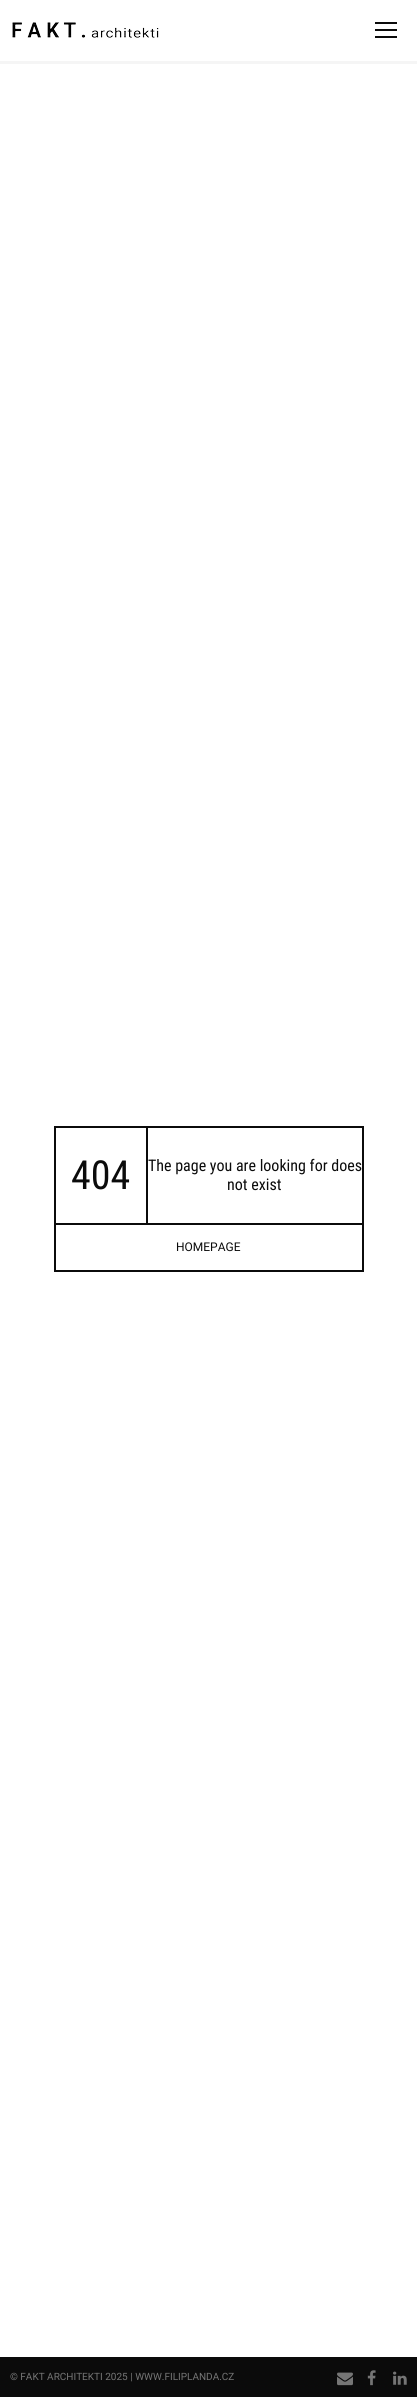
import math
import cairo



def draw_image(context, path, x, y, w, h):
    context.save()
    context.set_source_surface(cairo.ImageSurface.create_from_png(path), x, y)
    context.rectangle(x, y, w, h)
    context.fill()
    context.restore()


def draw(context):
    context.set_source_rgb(1, 1, 1)
    context.paint()
    draw_image(context, "images/1.png", 12, 22, 147, 16)
    context.set_source_rgb(11 / 255, 11 / 255, 11 / 255)
    context.rectangle(375, 22, 22, 2)
    context.fill()
    context.rectangle(375, 29, 22, 2)
    context.fill()
    context.rectangle(375, 36, 22, 2)
    context.fill()
    context.set_source_rgb(245 / 255, 245 / 255, 245 / 255)
    context.rectangle(0, 61, 417, 3)
    context.fill()
    context.rectangle(55, 1127, 308, 144)
    context.set_source_rgb(11 / 255, 11 / 255, 11 / 255)
    context.stroke()
    context.rectangle(146, 1128, 2, 95)
    context.fill()
    context.rectangle(56, 1223, 306, 2)
    context.fill()
    context.rectangle(0, 2357, 417, 40)
    context.fill()
    draw_image(context, "images/2.png", 337, 2372, 16, 14)
    draw_image(context, "images/3.png", 367, 2370, 9, 16)
    draw_image(context, "images/4.png", 393, 2371, 14, 14)
    context.select_font_face("Roboto Condensed")
    context.set_font_size(40)
    context.move_to(71, 1189)
    context.show_text("404")
    context.set_font_size(16)
    context.move_to(148, 1171)
    context.show_text("The page you are looking for does")
    context.move_to(227, 1190)
    context.show_text("not exist")
    context.select_font_face("Roboto")
    context.set_font_size(12)
    context.move_to(176, 1251)
    context.show_text("HOMEPAGE")
    context.set_font_size(10)
    context.set_source_rgb(117 / 255, 117 / 255, 117 / 255)
    context.move_to(10, 2380)
    context.show_text("© FAKT ARCHITEKTI 2025 | WWW.FILIPLANDA.CZ")


surface = cairo.ImageSurface(cairo.Format.RGB24, 417, 2397)
context = cairo.Context(surface)
options = cairo.FontOptions()
options.set_hint_metrics(cairo.HintMetrics.OFF)
options.set_hint_style(cairo.HintStyle.NONE)
context.set_font_options(options)
context.set_miter_limit(4)
draw(context)
surface.write_to_png("out.png")
